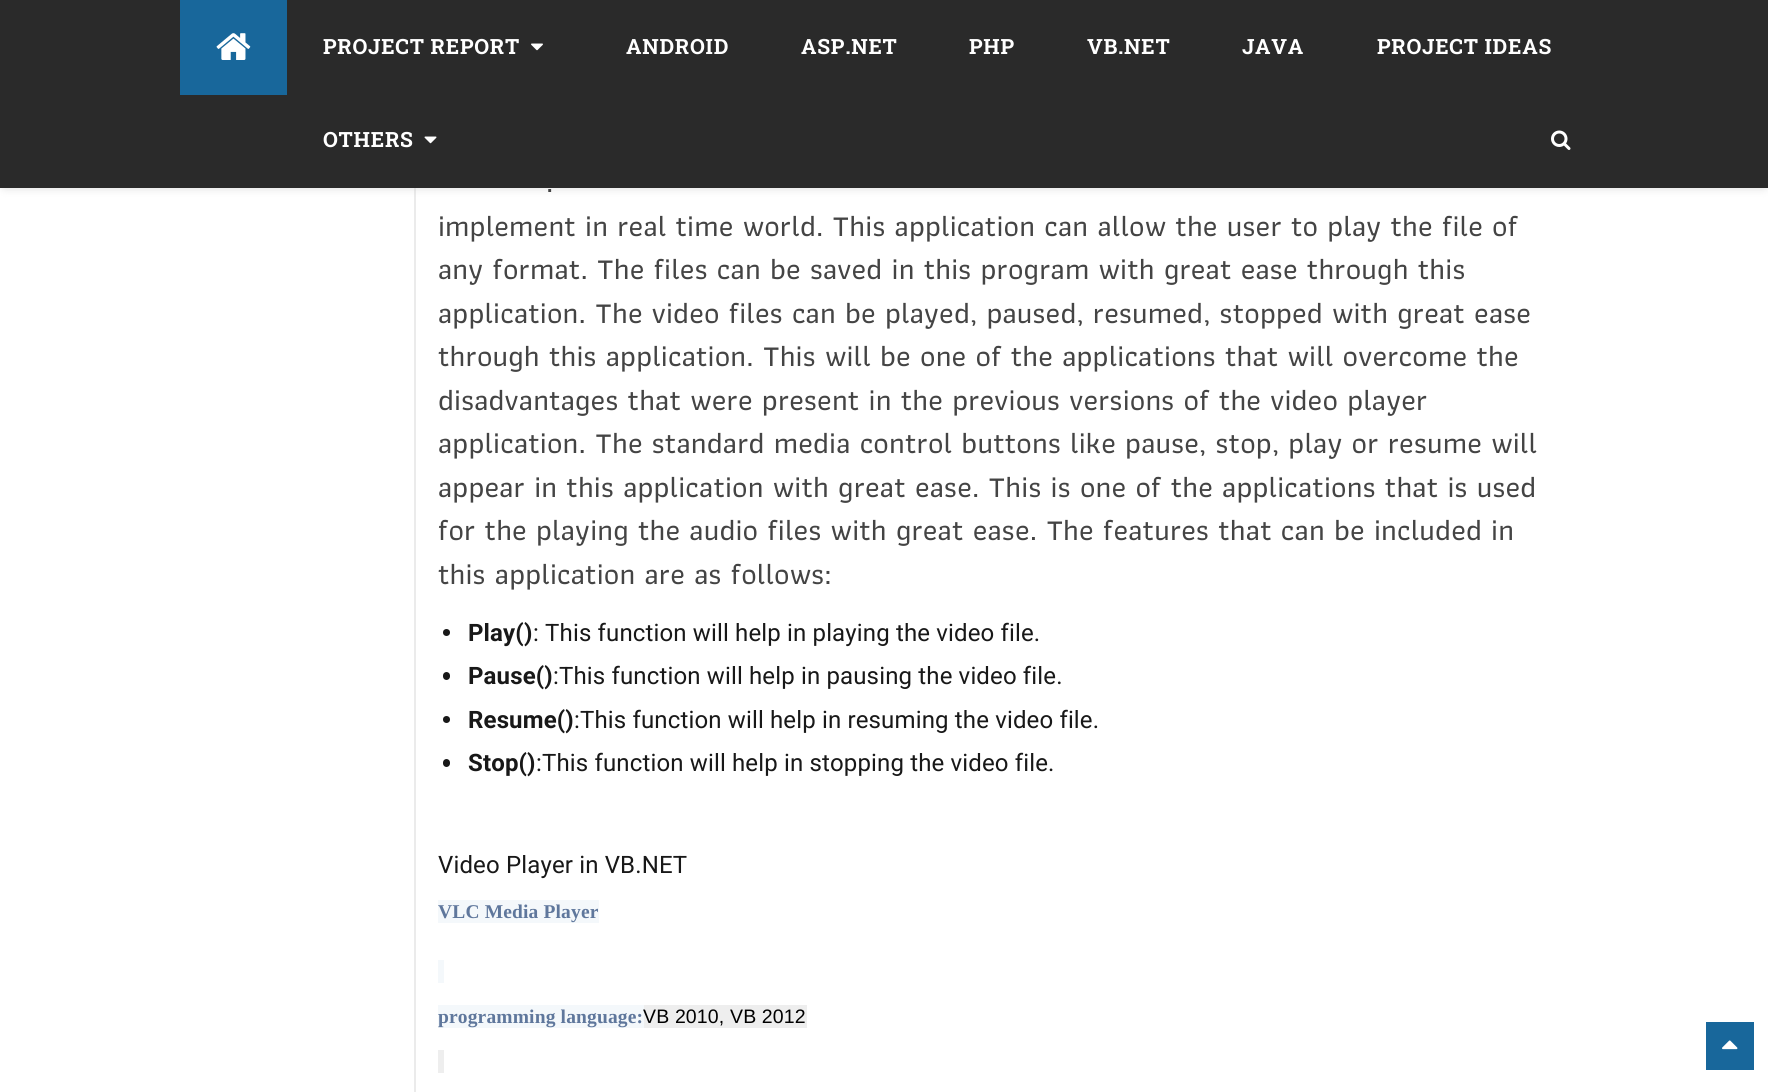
import math
import cairo



def draw_spaced(context, x, y, s, letter, word):
    context.move_to(x, y)
    for ch in s:
        context.show_text(ch)
        context.rel_move_to(letter + word * (ch == ' '), 0)


def rounded_rect(context, x, y, w, h, r):
    context.new_sub_path()
    for i, (u, v) in enumerate([(x + w - r, y + h - r), (x + r, y + h - r), (x + r, y + r), (x + w - r, y + r)]):
        context.arc(u, v, r, i * math.pi / 2, (i + 1) * math.pi / 2)
    context.close_path()


def draw_shadow(context, x, y, w, h, r, blur, alpha):
    context.push_group_with_content(cairo.Content.ALPHA)
    context.set_operator(cairo.Operator.SOURCE)
    for i in range(15, -16, -2):
        e = blur * i / 6
        if min(w, h) + 2 * e > 0:
            context.set_source_rgba(0, 0, 0, alpha * math.erfc((i - 1) / 8.5) / 2)
            rounded_rect(context, x - e, y - e, w + 2 * e, h + 2 * e, max(0, min(r + e + blur * .6, min(w, h) / 2 + e)))
            context.fill()
    context.mask(context.pop_group())


def draw_image(context, path, x, y, w, h):
    context.save()
    context.set_source_surface(cairo.ImageSurface.create_from_png(path), x, y)
    context.rectangle(x, y, w, h)
    context.fill()
    context.restore()


def draw(context):
    context.set_source_rgb(1, 1, 1)
    context.paint()
    context.set_source_rgb(235 / 255, 235 / 255, 235 / 255)
    context.rectangle(414, 188, 2, 904)
    context.fill()
    context.set_source_rgb(190 / 255, 190 / 255, 190 / 255)
    draw_shadow(context, 0, 2, 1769, 187, 6, 4, 0.46)
    context.set_source_rgb(42 / 255, 42 / 255, 42 / 255)
    context.rectangle(0, 0, 1768, 188)
    context.fill()
    context.set_source_rgb(24 / 255, 103 / 255, 155 / 255)
    context.rectangle(180, 0, 107, 95)
    context.fill()
    draw_image(context, "images/1.png", 216, 33, 35, 27)
    draw_image(context, "images/2.png", 531, 43, 12, 8)
    draw_image(context, "images/3.png", 424, 136, 13, 8)
    draw_image(context, "images/4.png", 1551, 130, 20, 20)
    context.set_source_rgb(24 / 255, 24 / 255, 24 / 255)
    context.arc(446.5, 632.5, 3.5, 0, 2 * math.pi)
    context.fill()
    rounded_rect(context, 443, 672, 7, 8, 3.5)
    context.fill()
    context.arc(446.5, 719.5, 3.5, 0, 2 * math.pi)
    context.fill()
    rounded_rect(context, 443, 759, 7, 8, 3.5)
    context.fill()
    context.set_source_rgb(244 / 255, 248 / 255, 251 / 255)
    context.rectangle(438, 900, 161, 23)
    context.fill()
    context.rectangle(438, 960, 6, 23)
    context.fill()
    context.rectangle(438, 1005, 206, 23)
    context.fill()
    context.set_source_rgb(238 / 255, 238 / 255, 238 / 255)
    context.rectangle(644, 1005, 163, 23)
    context.fill()
    context.rectangle(438, 1050, 6, 23)
    context.fill()
    context.set_source_rgb(24 / 255, 103 / 255, 155 / 255)
    context.rectangle(1706, 1022, 48, 48)
    context.fill()
    draw_image(context, "images/5.png", 1722, 1040, 16, 10)
    context.select_font_face("Roboto Slab", cairo.FontSlant.NORMAL, cairo.FontWeight.BOLD)
    context.set_font_size(21)
    context.set_source_rgb(1, 1, 1)
    draw_spaced(context, 323, 54, "PROJECT REPORT", 0.75, 0)
    draw_spaced(context, 626, 54, "ANDROID", 0.75, 0)
    draw_spaced(context, 801, 54, "ASP.NET", 0.75, 0)
    draw_spaced(context, 969, 54, "PHP", 0.75, 0)
    draw_spaced(context, 1087, 54, "VB.NET", 0.75, 0)
    draw_spaced(context, 1242, 54, "JAVA", 0.75, 0)
    draw_spaced(context, 1377, 54, "PROJECT IDEAS", 0.75, 0)
    draw_spaced(context, 323, 147, "OTHERS", 0.75, 0)
    context.select_font_face("Athiti Medium")
    context.set_font_size(30)
    context.set_source_rgb(68 / 255, 68 / 255, 68 / 255)
    draw_spaced(context, 546, 192, ".", 0.15, 0)
    draw_spaced(context, 438, 236, "implement in real time world. This application can allow the user to play the file of", 0.15, 0)
    draw_spaced(context, 438, 279, "any format. The files can be saved in this program with great ease through this", 0.15, 0)
    draw_spaced(context, 438, 323, "application. The video files can be played, paused, resumed, stopped with great ease", 0.15, 0)
    draw_spaced(context, 438, 366, "through this application. This will be one of the applications that will overcome the", 0.15, 0)
    draw_spaced(context, 438, 410, "disadvantages that were present in the previous versions of the video player", 0.15, 0)
    draw_spaced(context, 438, 453, "application. The standard media control buttons like pause, stop, play or resume will", 0.15, 0)
    draw_spaced(context, 438, 497, "appear in this application with great ease. This is one of the applications that is used", 0.15, 0)
    draw_spaced(context, 438, 540, "for the playing the audio files with great ease. The features that can be included in", 0.15, 0)
    draw_spaced(context, 438, 584, "this application are as follows:", 0.15, 0)
    context.select_font_face("Roboto", cairo.FontSlant.NORMAL, cairo.FontWeight.BOLD)
    context.set_font_size(24)
    context.set_source_rgb(24 / 255, 24 / 255, 24 / 255)
    draw_spaced(context, 468, 641, "Play()", 0.15, 0)
    context.select_font_face("Roboto")
    draw_spaced(context, 533, 641, ": This function will help in playing the video file.", 0.15, 0)
    context.select_font_face("Roboto", cairo.FontSlant.NORMAL, cairo.FontWeight.BOLD)
    draw_spaced(context, 468, 684, "Pause()", 0.15, 0)
    context.select_font_face("Roboto")
    draw_spaced(context, 553, 684, ":This function will help in pausing the video file.", 0.15, 0)
    context.select_font_face("Roboto", cairo.FontSlant.NORMAL, cairo.FontWeight.BOLD)
    draw_spaced(context, 468, 728, "Resume()", 0.15, 0)
    context.select_font_face("Roboto")
    draw_spaced(context, 574, 728, ":This function will help in resuming the video file.", 0.15, 0)
    context.select_font_face("Roboto", cairo.FontSlant.NORMAL, cairo.FontWeight.BOLD)
    draw_spaced(context, 468, 771, "Stop()", 0.15, 0)
    context.select_font_face("Roboto")
    draw_spaced(context, 536, 771, ":This function will help in stopping the video file.", 0.15, 0)
    draw_spaced(context, 438, 873, "Video Player in VB.NET", 0.15, 0)
    context.select_font_face("Liberation Serif", cairo.FontSlant.NORMAL, cairo.FontWeight.BOLD)
    context.set_font_size(19.5)
    context.set_source_rgb(95 / 255, 119 / 255, 156 / 255)
    draw_spaced(context, 438, 918, "VLC Media Player", 0.15, 0)
    draw_spaced(context, 438, 1023, "programming language:", 0.15, 0)
    context.select_font_face("Liberation Sans")
    context.set_source_rgb(0, 0, 0)
    draw_spaced(context, 643, 1023, "VB 2010, VB 2012", 0.15, 0)


surface = cairo.ImageSurface(cairo.Format.RGB24, 1768, 1092)
context = cairo.Context(surface)
options = cairo.FontOptions()
options.set_hint_metrics(cairo.HintMetrics.OFF)
options.set_hint_style(cairo.HintStyle.NONE)
context.set_font_options(options)
context.set_miter_limit(4)
draw(context)
surface.write_to_png("out.png")
